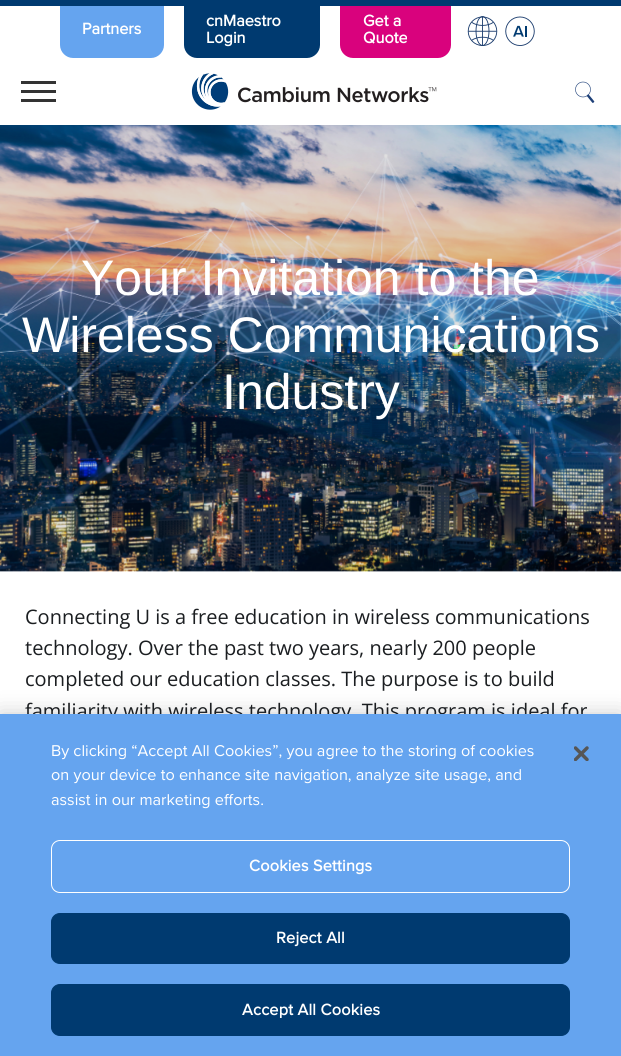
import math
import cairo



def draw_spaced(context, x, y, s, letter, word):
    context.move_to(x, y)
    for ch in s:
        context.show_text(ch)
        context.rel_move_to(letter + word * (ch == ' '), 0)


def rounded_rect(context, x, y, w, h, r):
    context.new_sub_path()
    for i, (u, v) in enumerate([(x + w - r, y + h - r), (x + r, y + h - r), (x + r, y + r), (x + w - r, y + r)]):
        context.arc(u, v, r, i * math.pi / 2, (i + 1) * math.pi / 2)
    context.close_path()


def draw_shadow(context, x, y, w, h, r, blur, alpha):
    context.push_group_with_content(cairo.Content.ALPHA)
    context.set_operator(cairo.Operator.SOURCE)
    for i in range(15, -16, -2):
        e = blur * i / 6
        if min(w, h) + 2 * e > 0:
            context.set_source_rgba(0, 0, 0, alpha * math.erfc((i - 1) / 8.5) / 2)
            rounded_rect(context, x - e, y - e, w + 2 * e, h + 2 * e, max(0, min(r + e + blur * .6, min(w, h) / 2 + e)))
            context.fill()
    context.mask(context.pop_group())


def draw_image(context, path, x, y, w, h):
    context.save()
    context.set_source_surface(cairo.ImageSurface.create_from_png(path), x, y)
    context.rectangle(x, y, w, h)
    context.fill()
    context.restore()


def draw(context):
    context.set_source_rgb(1, 1, 1)
    context.paint()
    context.set_source_rgb(0, 58 / 255, 112 / 255)
    context.rectangle(0, 0, 621, 6)
    context.fill()
    context.set_source_rgb(101 / 255, 164 / 255, 239 / 255)
    context.new_path()
    context.move_to(60, 6)
    context.line_to(164, 6)
    context.line_to(164, 45)
    context.curve_to(164, 52, 158, 58, 151, 58)
    context.line_to(73, 58)
    context.curve_to(66, 58, 60, 52, 60, 45)
    context.close_path()
    context.fill()
    context.set_source_rgb(0, 58 / 255, 112 / 255)
    context.new_path()
    context.move_to(184, 6)
    context.line_to(320, 6)
    context.line_to(320, 45)
    context.curve_to(320, 52, 314, 58, 307, 58)
    context.line_to(197, 58)
    context.curve_to(190, 58, 184, 52, 184, 45)
    context.close_path()
    context.fill()
    context.set_source_rgb(217 / 255, 2 / 255, 125 / 255)
    context.new_path()
    context.move_to(340, 6)
    context.line_to(451, 6)
    context.line_to(451, 45)
    context.curve_to(451, 52, 445, 58, 438, 58)
    context.line_to(353, 58)
    context.curve_to(346, 58, 340, 52, 340, 45)
    context.close_path()
    context.fill()
    draw_image(context, "images/1.png", 467, 16, 31, 30)
    draw_image(context, "images/2.png", 505, 16, 30, 30)
    context.set_source_rgb(51 / 255, 51 / 255, 51 / 255)
    context.rectangle(21, 81, 35, 3)
    context.fill()
    context.rectangle(21, 90, 35, 3)
    context.fill()
    context.rectangle(21, 99, 35, 3)
    context.fill()
    draw_image(context, "images/3.png", 191, 73, 246, 37)
    draw_image(context, "images/4.png", 575, 81, 20, 22)
    draw_image(context, "images/5.png", 0, 125, 621, 447)
    context.set_source_rgb(0, 0, 0)
    draw_shadow(context, 0, 714, 621, 342, 0, 11, 0.2)
    context.select_font_face("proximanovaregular", cairo.FontSlant.NORMAL, cairo.FontWeight.BOLD)
    context.set_font_size(16.25)
    context.set_source_rgb(1, 1, 1)
    context.move_to(82, 34)
    context.show_text("Partners")
    context.move_to(206, 26)
    context.show_text("cnMaestro")
    context.move_to(206, 43)
    context.show_text("Login")
    context.move_to(363, 26)
    context.show_text("Get a")
    context.move_to(363, 43)
    context.show_text("Quote")
    context.select_font_face("Liberation Sans")
    context.set_font_size(50)
    context.move_to(81, 295)
    context.show_text("Your Invitation to the")
    context.move_to(22, 352)
    context.show_text("Wireless Communications")
    context.move_to(222, 409)
    context.show_text("Industry")
    context.select_font_face("Open Sans")
    context.set_font_size(20)
    context.set_source_rgb(27 / 255, 30 / 255, 33 / 255)
    context.move_to(25, 624)
    context.show_text("Connecting U is a free education in wireless communications")
    context.move_to(25, 655)
    context.show_text("technology. Over the past two years, nearly 200 people")
    context.move_to(25, 686)
    context.show_text("completed our education classes. The purpose is to build")
    context.move_to(25, 718)
    context.show_text("familiarity with wireless technology. This program is ideal for")
    context.set_source_rgb(101 / 255, 164 / 255, 239 / 255)
    context.rectangle(0, 714, 621, 342)
    context.fill()
    context.select_font_face("proximanovaregular")
    context.set_font_size(16.25)
    context.set_source_rgb(1, 1, 1)
    context.move_to(51, 756)
    context.show_text("By clicking “Accept All Cookies”, you agree to the storing of cookies")
    context.move_to(51, 780)
    context.show_text("on your device to enhance site navigation, analyze site usage, and")
    context.move_to(51, 805)
    context.show_text("assist in our marketing efforts.")
    rounded_rect(context, 51.5, 840.5, 518, 52, 8.5)
    context.set_line_width(1)
    context.stroke()
    context.select_font_face("proximanovaregular", cairo.FontSlant.NORMAL, cairo.FontWeight.BOLD)
    draw_spaced(context, 249, 871, "Cookies Settings", 0.2, 0)
    context.set_source_rgb(0, 58 / 255, 112 / 255)
    rounded_rect(context, 51.5, 913.5, 518, 50, 8.5)
    context.fill_preserve()
    context.stroke()
    context.set_source_rgb(1, 1, 1)
    draw_spaced(context, 276, 943, "Reject All", 0.2, 0)
    context.set_source_rgb(0, 58 / 255, 112 / 255)
    rounded_rect(context, 51.5, 984.5, 518, 51, 8.5)
    context.fill_preserve()
    context.stroke()
    context.set_source_rgb(1, 1, 1)
    draw_spaced(context, 242, 1015, "Accept All Cookies", 0.2, 0)
    draw_image(context, "images/6.png", 574, 746, 15, 15)


surface = cairo.ImageSurface(cairo.Format.RGB24, 621, 1056)
context = cairo.Context(surface)
options = cairo.FontOptions()
options.set_hint_metrics(cairo.HintMetrics.OFF)
options.set_hint_style(cairo.HintStyle.NONE)
context.set_font_options(options)
context.set_miter_limit(4)
draw(context)
surface.write_to_png("out.png")
